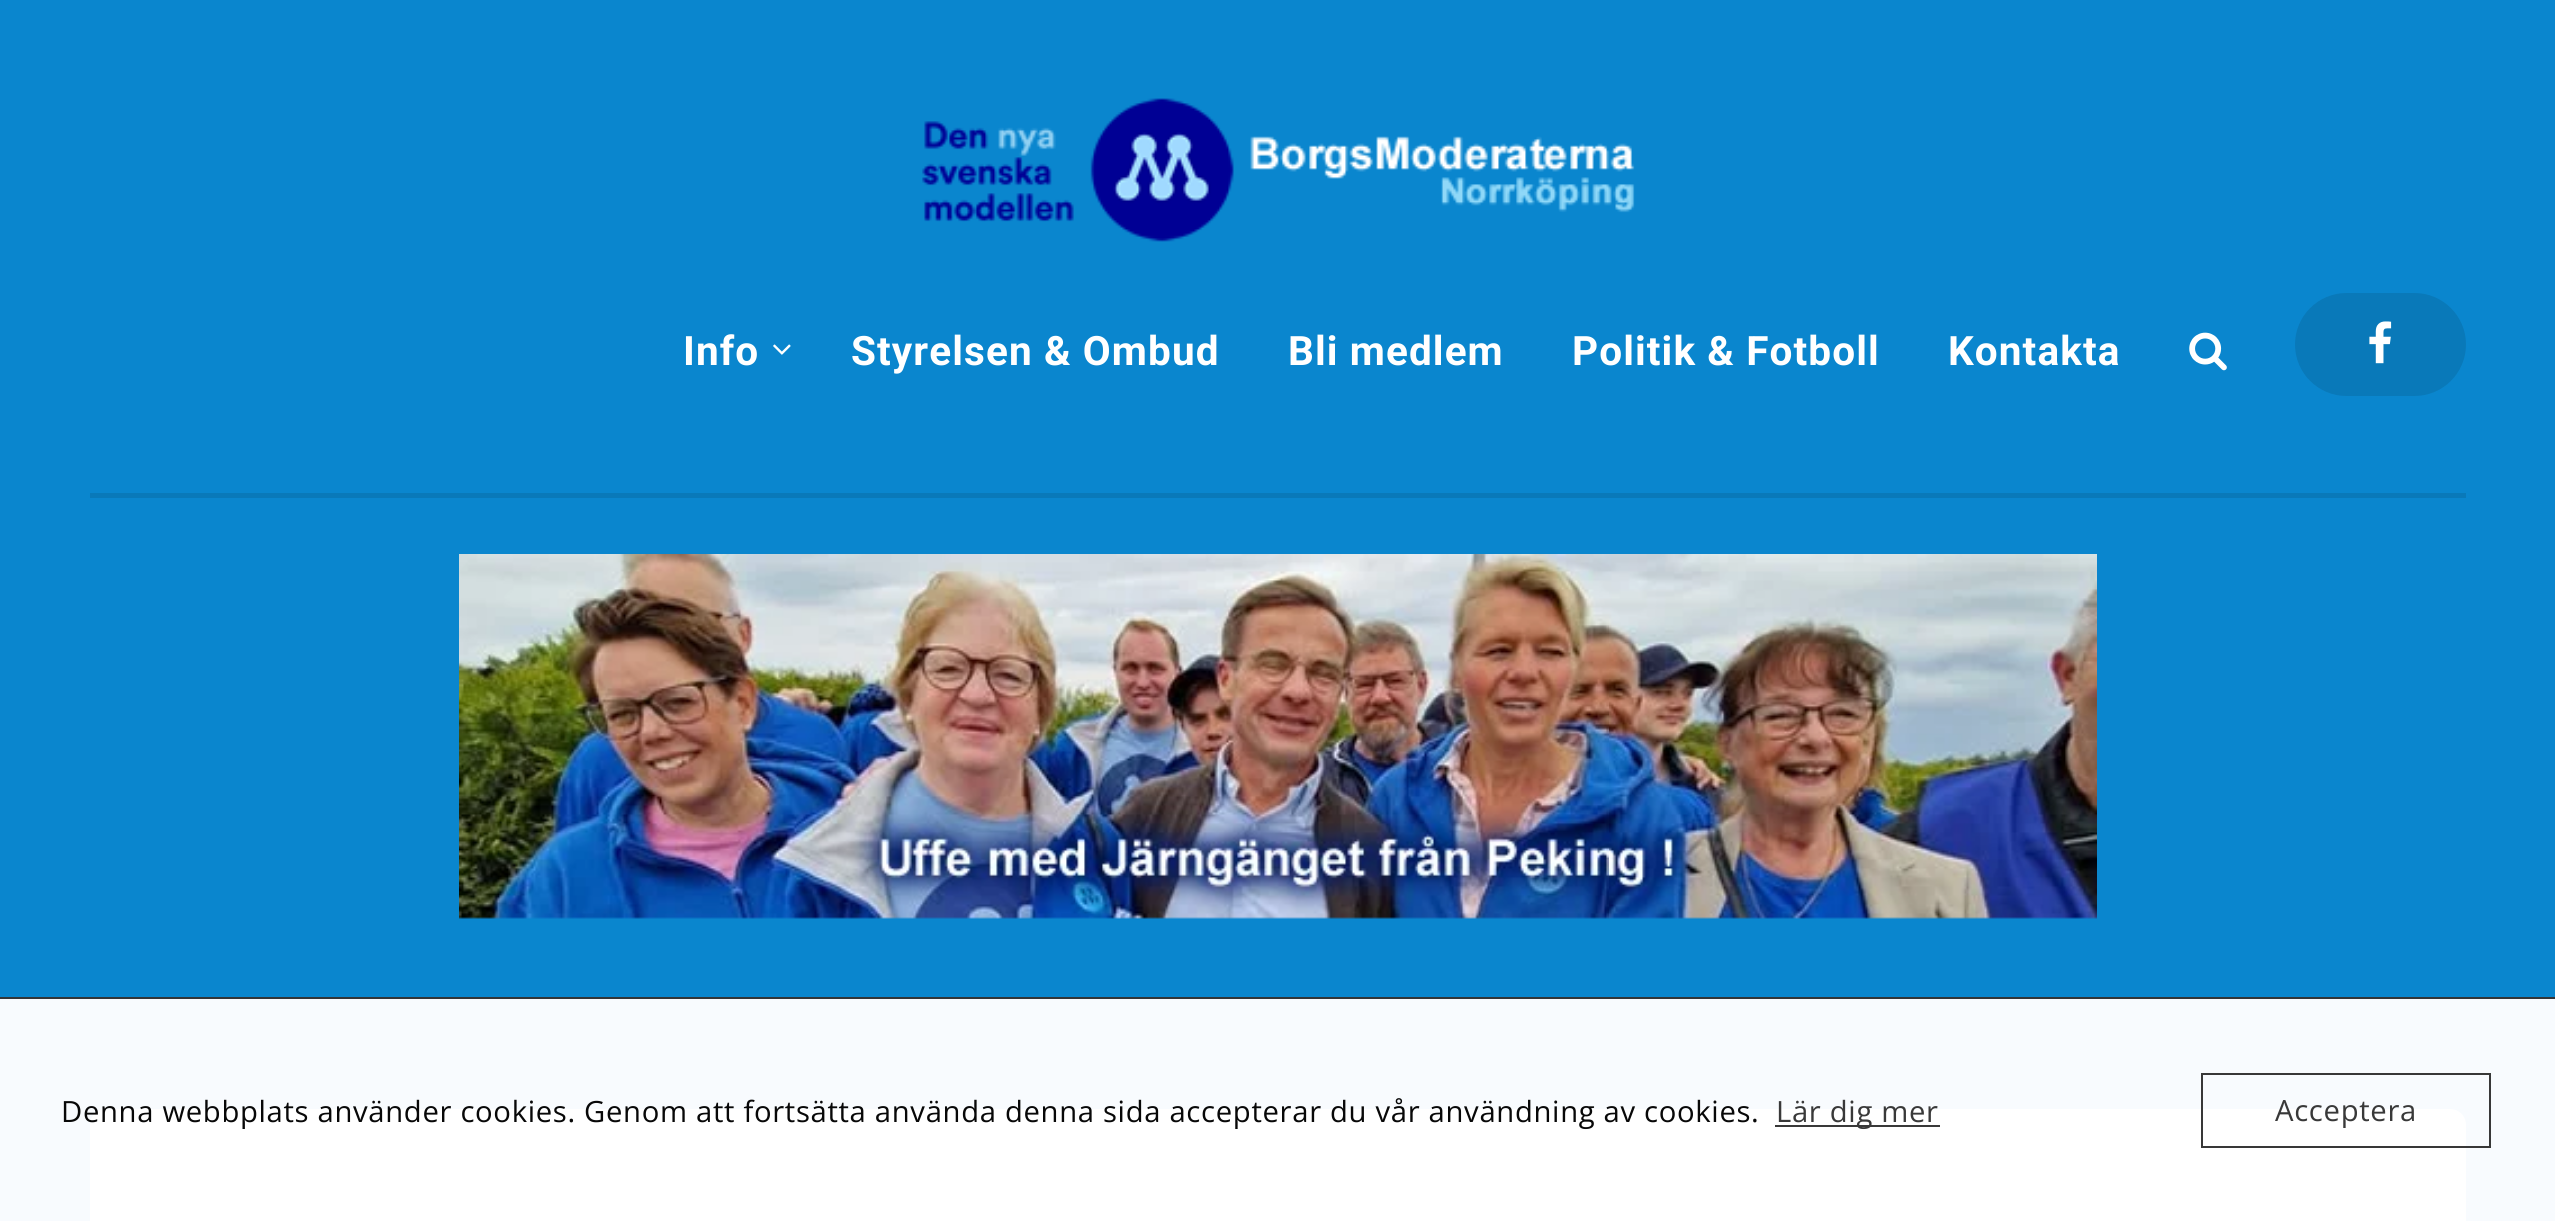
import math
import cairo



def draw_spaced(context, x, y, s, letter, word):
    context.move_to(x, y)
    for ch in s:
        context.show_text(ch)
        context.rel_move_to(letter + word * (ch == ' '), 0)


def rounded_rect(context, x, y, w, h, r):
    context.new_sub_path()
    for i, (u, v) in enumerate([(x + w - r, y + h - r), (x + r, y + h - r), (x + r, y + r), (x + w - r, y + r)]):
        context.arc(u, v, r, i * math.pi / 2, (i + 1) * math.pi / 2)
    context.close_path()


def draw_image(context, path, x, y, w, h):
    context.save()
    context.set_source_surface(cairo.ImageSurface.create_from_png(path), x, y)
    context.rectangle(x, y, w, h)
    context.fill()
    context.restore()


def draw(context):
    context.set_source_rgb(10 / 255, 134 / 255, 206 / 255)
    context.paint()
    context.set_source_rgb(248 / 255, 251 / 255, 254 / 255)
    context.rectangle(0, 999, 2555, 222)
    context.fill()
    draw_image(context, "images/1.png", 922, 98, 713, 144)
    draw_image(context, "images/2.png", 773, 344, 18, 11)
    draw_image(context, "images/3.png", 2189, 332, 38, 39)
    context.set_source_rgb(9 / 255, 121 / 255, 185 / 255)
    rounded_rect(context, 2295, 293, 171, 103, 51.5)
    context.fill()
    draw_image(context, "images/4.png", 2369, 321, 23, 43)
    context.rectangle(90, 493, 2376, 5)
    context.fill()
    draw_image(context, "images/5.png", 459, 554, 1638, 365)
    context.set_source_rgb(1, 1, 1)
    context.new_path()
    context.move_to(106, 1109)
    context.line_to(2450, 1109)
    context.curve_to(2459, 1109, 2466, 1116, 2466, 1125)
    context.line_to(2466, 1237)
    context.line_to(90, 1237)
    context.line_to(90, 1125)
    context.curve_to(90, 1116, 97, 1109, 106, 1109)
    context.close_path()
    context.fill()
    context.set_source_rgb(50 / 255, 53 / 255, 56 / 255)
    context.rectangle(0, 997, 2555, 2)
    context.fill()
    context.set_source_rgb(57 / 255, 57 / 255, 57 / 255)
    context.rectangle(1775, 1125, 165, 2)
    context.fill()
    context.rectangle(2202, 1074, 288, 73)
    context.set_source_rgba(51 / 255, 51 / 255, 51 / 255, 0.97)
    context.stroke()
    context.select_font_face("Roboto", cairo.FontSlant.NORMAL, cairo.FontWeight.BOLD)
    context.set_font_size(40.5)
    context.set_source_rgb(1, 1, 1)
    draw_spaced(context, 683, 365, "Info", 1.1, 0)
    draw_spaced(context, 851, 365, "Styrelsen & Ombud", 1.1, 0)
    draw_spaced(context, 1288, 365, "Bli medlem", 1.1, 0)
    draw_spaced(context, 1572, 365, "Politik & Fotboll", 1.1, 0)
    draw_spaced(context, 1948, 365, "Kontakta", 1.1, 0)
    context.select_font_face("Open Sans")
    context.set_font_size(29.25)
    context.set_source_rgb(8 / 255, 8 / 255, 8 / 255)
    draw_spaced(context, 61, 1122, "Denna webbplats använder cookies. Genom att fortsätta använda denna sida accepterar du vår användning av cookies.", 0.67, 0)
    context.set_source_rgb(57 / 255, 57 / 255, 57 / 255)
    draw_spaced(context, 1776, 1122, "Lär dig mer", 0.67, 0)
    draw_spaced(context, 2275, 1121, "Acceptera", 0.67, 0)


surface = cairo.ImageSurface(cairo.Format.RGB24, 2555, 1221)
context = cairo.Context(surface)
options = cairo.FontOptions()
options.set_hint_metrics(cairo.HintMetrics.OFF)
options.set_hint_style(cairo.HintStyle.NONE)
context.set_font_options(options)
context.set_miter_limit(4)
draw(context)
surface.write_to_png("out.png")
